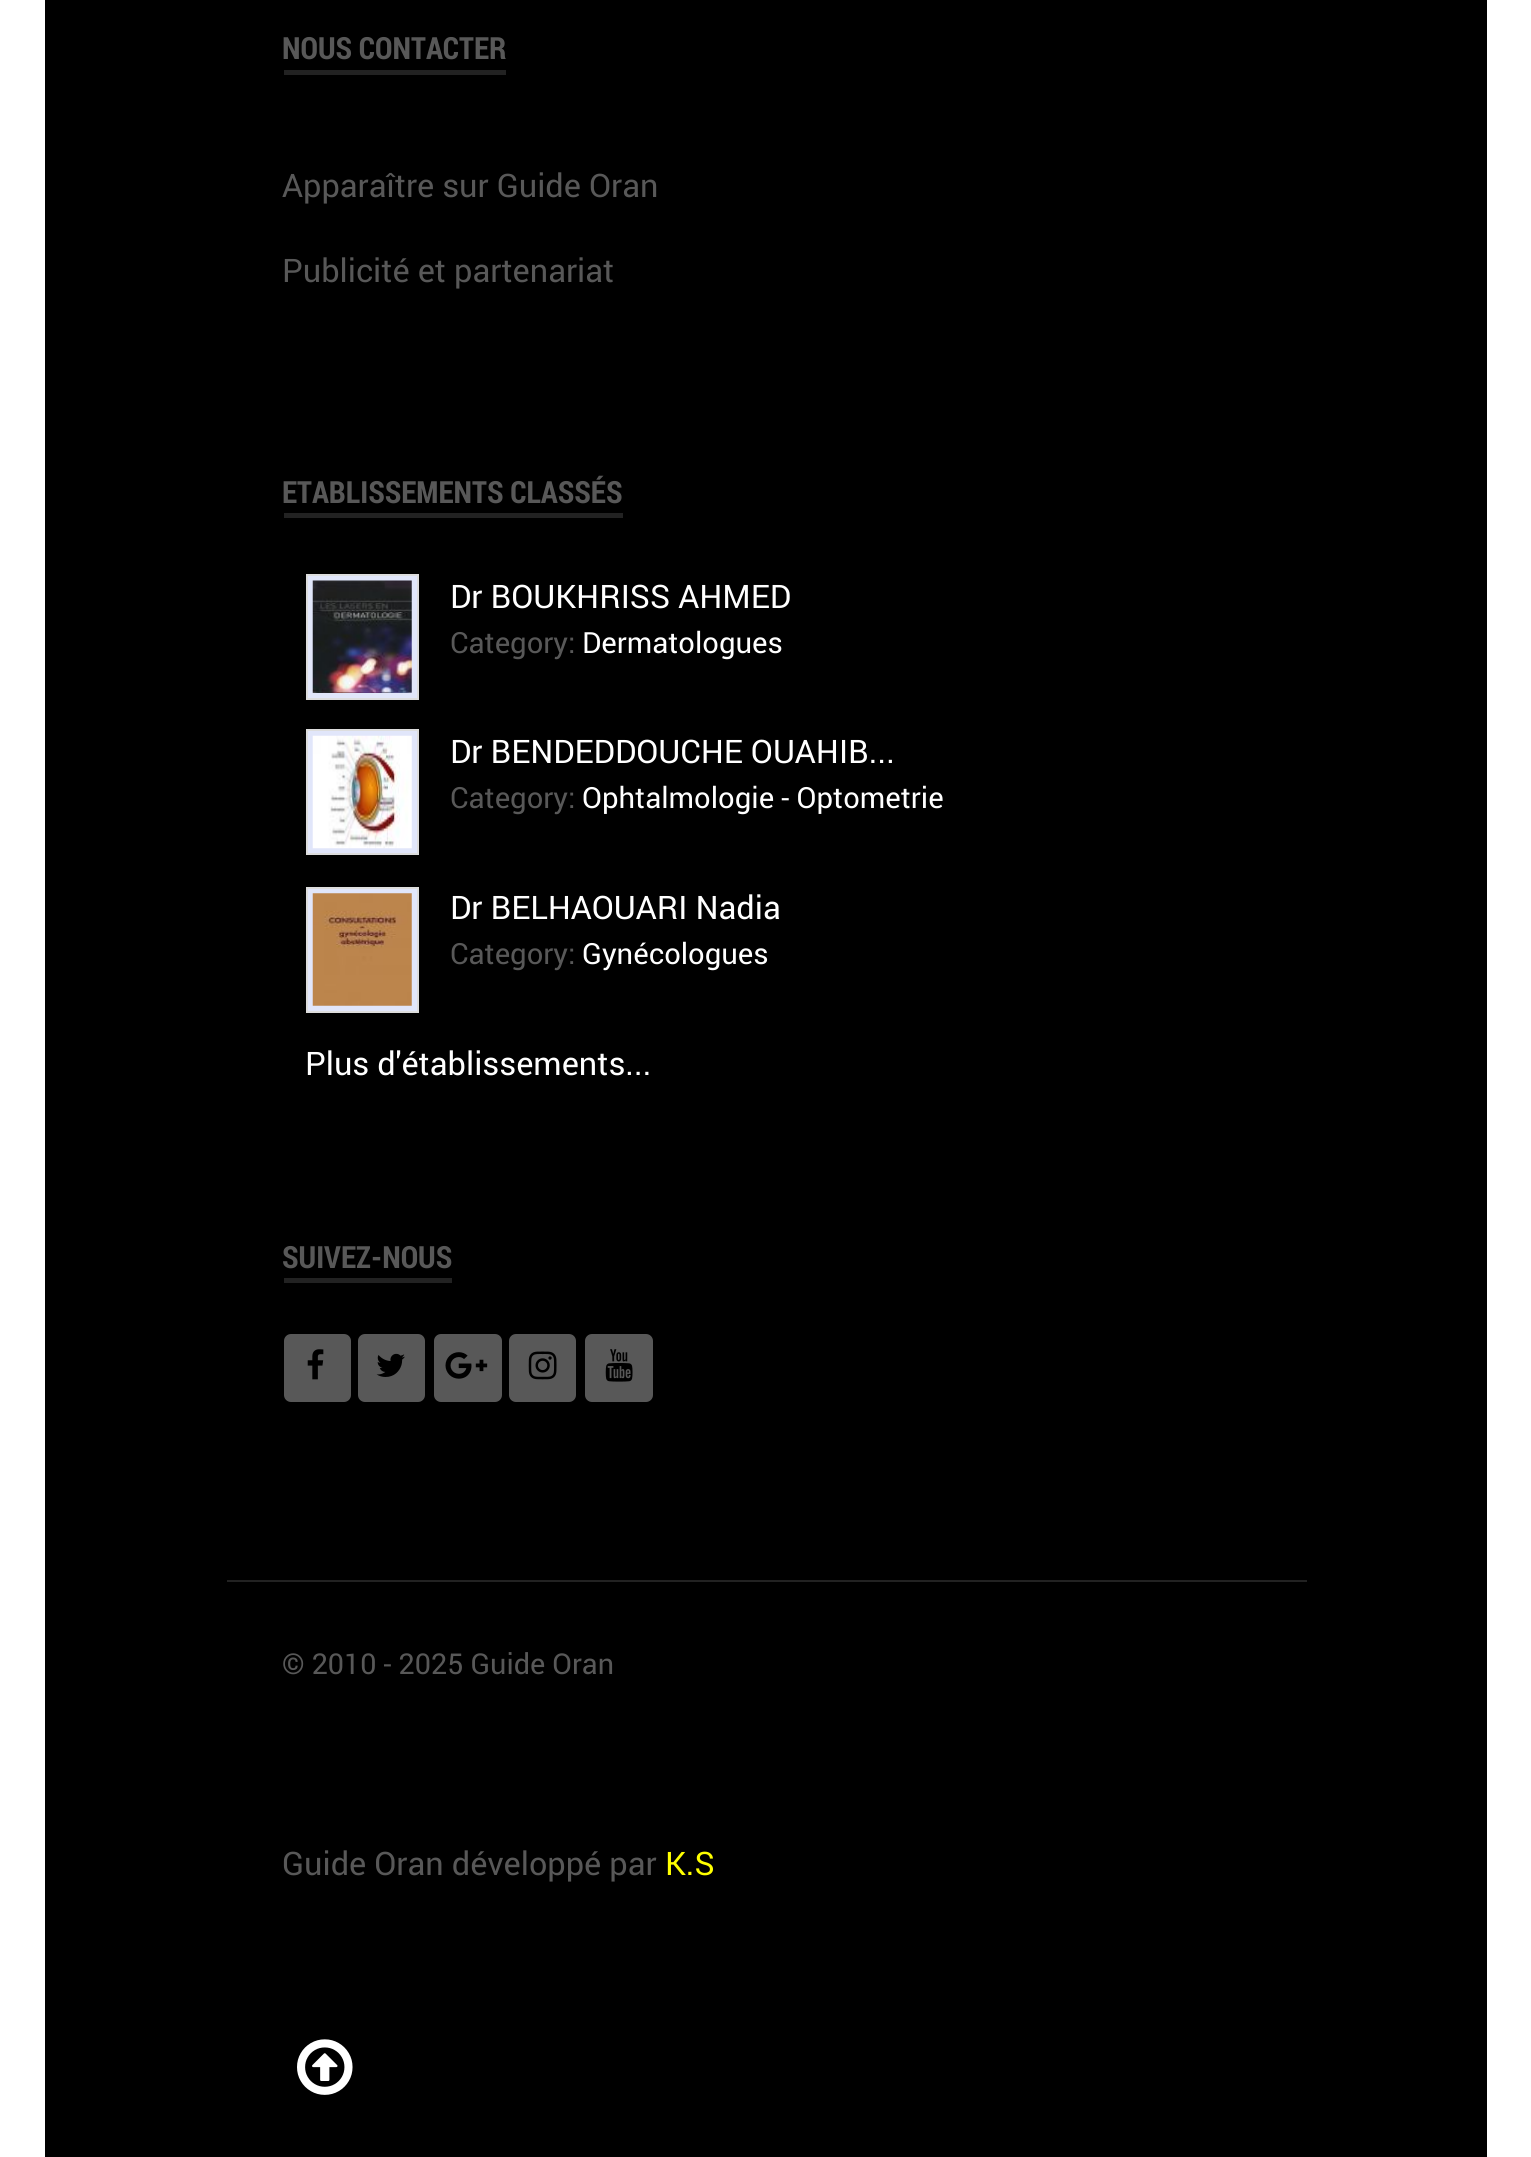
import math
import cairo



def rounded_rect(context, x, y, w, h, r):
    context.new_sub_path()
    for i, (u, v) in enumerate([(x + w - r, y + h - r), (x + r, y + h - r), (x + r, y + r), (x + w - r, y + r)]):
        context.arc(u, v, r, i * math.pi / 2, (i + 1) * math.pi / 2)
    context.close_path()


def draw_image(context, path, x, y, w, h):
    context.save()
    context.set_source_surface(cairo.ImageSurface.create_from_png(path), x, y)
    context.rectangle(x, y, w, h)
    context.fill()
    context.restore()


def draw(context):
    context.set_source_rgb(1, 1, 1)
    context.paint()
    context.set_source_rgb(0, 0, 0)
    context.rectangle(45, 0, 1442, 2157)
    context.fill()
    context.set_source_rgb(34 / 255, 34 / 255, 34 / 255)
    context.rectangle(284, 70, 222, 5)
    context.fill()
    context.rectangle(284, 513, 339, 5)
    context.fill()
    context.set_source_rgb(225 / 255, 230 / 255, 250 / 255)
    context.rectangle(307, 575, 111, 124)
    context.fill_preserve()
    context.set_source_rgb(221 / 255, 221 / 255, 221 / 255)
    context.stroke()
    draw_image(context, "images/1.png", 312, 580, 100, 113)
    context.set_source_rgb(225 / 255, 230 / 255, 250 / 255)
    context.rectangle(307, 730, 111, 124)
    context.fill_preserve()
    context.set_source_rgb(221 / 255, 221 / 255, 221 / 255)
    context.stroke()
    draw_image(context, "images/2.png", 312, 735, 100, 114)
    context.set_source_rgb(225 / 255, 230 / 255, 250 / 255)
    context.rectangle(307, 888, 111, 124)
    context.fill_preserve()
    context.set_source_rgb(221 / 255, 221 / 255, 221 / 255)
    context.stroke()
    draw_image(context, "images/3.png", 312, 893, 100, 113)
    context.set_source_rgb(34 / 255, 34 / 255, 34 / 255)
    context.rectangle(284, 1278, 168, 5)
    context.fill()
    context.set_source_rgb(88 / 255, 88 / 255, 88 / 255)
    rounded_rect(context, 284, 1334, 67, 68, 7)
    context.fill()
    draw_image(context, "images/4.png", 307, 1349, 17, 31)
    rounded_rect(context, 358, 1334, 67, 68, 7)
    context.fill()
    draw_image(context, "images/5.png", 376, 1353, 29, 24)
    rounded_rect(context, 434, 1334, 68, 68, 7)
    context.fill()
    draw_image(context, "images/6.png", 445, 1352, 43, 27)
    rounded_rect(context, 509, 1334, 67, 68, 7)
    context.fill()
    draw_image(context, "images/7.png", 528, 1351, 29, 29)
    rounded_rect(context, 585, 1334, 68, 68, 7)
    context.fill()
    draw_image(context, "images/8.png", 605, 1349, 28, 33)
    context.set_source_rgb(34 / 255, 34 / 255, 34 / 255)
    context.rectangle(227, 1580, 1080, 2)
    context.fill()
    draw_image(context, "images/9.png", 297, 2039, 56, 56)
    context.select_font_face("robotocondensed", cairo.FontSlant.NORMAL, cairo.FontWeight.BOLD)
    context.set_font_size(30.6)
    context.set_source_rgb(88 / 255, 88 / 255, 88 / 255)
    context.move_to(282, 59)
    context.show_text("NOUS CONTACTER")
    context.select_font_face("roboto")
    context.set_font_size(32.4)
    context.move_to(282, 197)
    context.show_text("Apparaître sur Guide Oran")
    context.move_to(282, 282)
    context.show_text("Publicité et partenariat")
    context.select_font_face("robotocondensed", cairo.FontSlant.NORMAL, cairo.FontWeight.BOLD)
    context.set_font_size(30.6)
    context.move_to(282, 503)
    context.show_text("ETABLISSEMENTS CLASSÉS")
    context.select_font_face("roboto")
    context.set_font_size(32.4)
    context.set_source_rgb(1, 1, 1)
    context.move_to(450, 608)
    context.show_text("Dr BOUKHRISS AHMED")
    context.set_font_size(29.2)
    context.set_source_rgb(88 / 255, 88 / 255, 88 / 255)
    context.move_to(450, 653)
    context.show_text("Category:")
    context.set_source_rgb(1, 1, 1)
    context.move_to(582, 653)
    context.show_text("Dermatologues")
    context.set_font_size(32.4)
    context.move_to(450, 763)
    context.show_text("Dr BENDEDDOUCHE OUAHIB...")
    context.set_font_size(29.2)
    context.set_source_rgb(88 / 255, 88 / 255, 88 / 255)
    context.move_to(450, 808)
    context.show_text("Category:")
    context.set_source_rgb(1, 1, 1)
    context.move_to(582, 808)
    context.show_text("Ophtalmologie - Optometrie")
    context.set_font_size(32.4)
    context.move_to(450, 919)
    context.show_text("Dr BELHAOUARI Nadia")
    context.set_font_size(29.2)
    context.set_source_rgb(88 / 255, 88 / 255, 88 / 255)
    context.move_to(450, 964)
    context.show_text("Category:")
    context.set_source_rgb(1, 1, 1)
    context.move_to(582, 964)
    context.show_text("Gynécologues")
    context.set_font_size(32.4)
    context.move_to(305, 1075)
    context.show_text("Plus d'établissements...")
    context.select_font_face("robotocondensed", cairo.FontSlant.NORMAL, cairo.FontWeight.BOLD)
    context.set_font_size(30.6)
    context.set_source_rgb(88 / 255, 88 / 255, 88 / 255)
    context.move_to(282, 1268)
    context.show_text("SUIVEZ-NOUS")
    context.select_font_face("roboto")
    context.set_font_size(28.75)
    context.move_to(282, 1674)
    context.show_text("© 2010 - 2025 Guide Oran")
    context.set_font_size(32.4)
    context.move_to(282, 1875)
    context.show_text("Guide Oran développé par")
    context.set_source_rgb(1, 1, 0)
    context.move_to(665, 1875)
    context.show_text("K.S")


surface = cairo.ImageSurface(cairo.Format.RGB24, 1531, 2157)
context = cairo.Context(surface)
options = cairo.FontOptions()
options.set_hint_metrics(cairo.HintMetrics.OFF)
options.set_hint_style(cairo.HintStyle.NONE)
context.set_font_options(options)
context.set_miter_limit(4)
draw(context)
surface.write_to_png("out.png")
